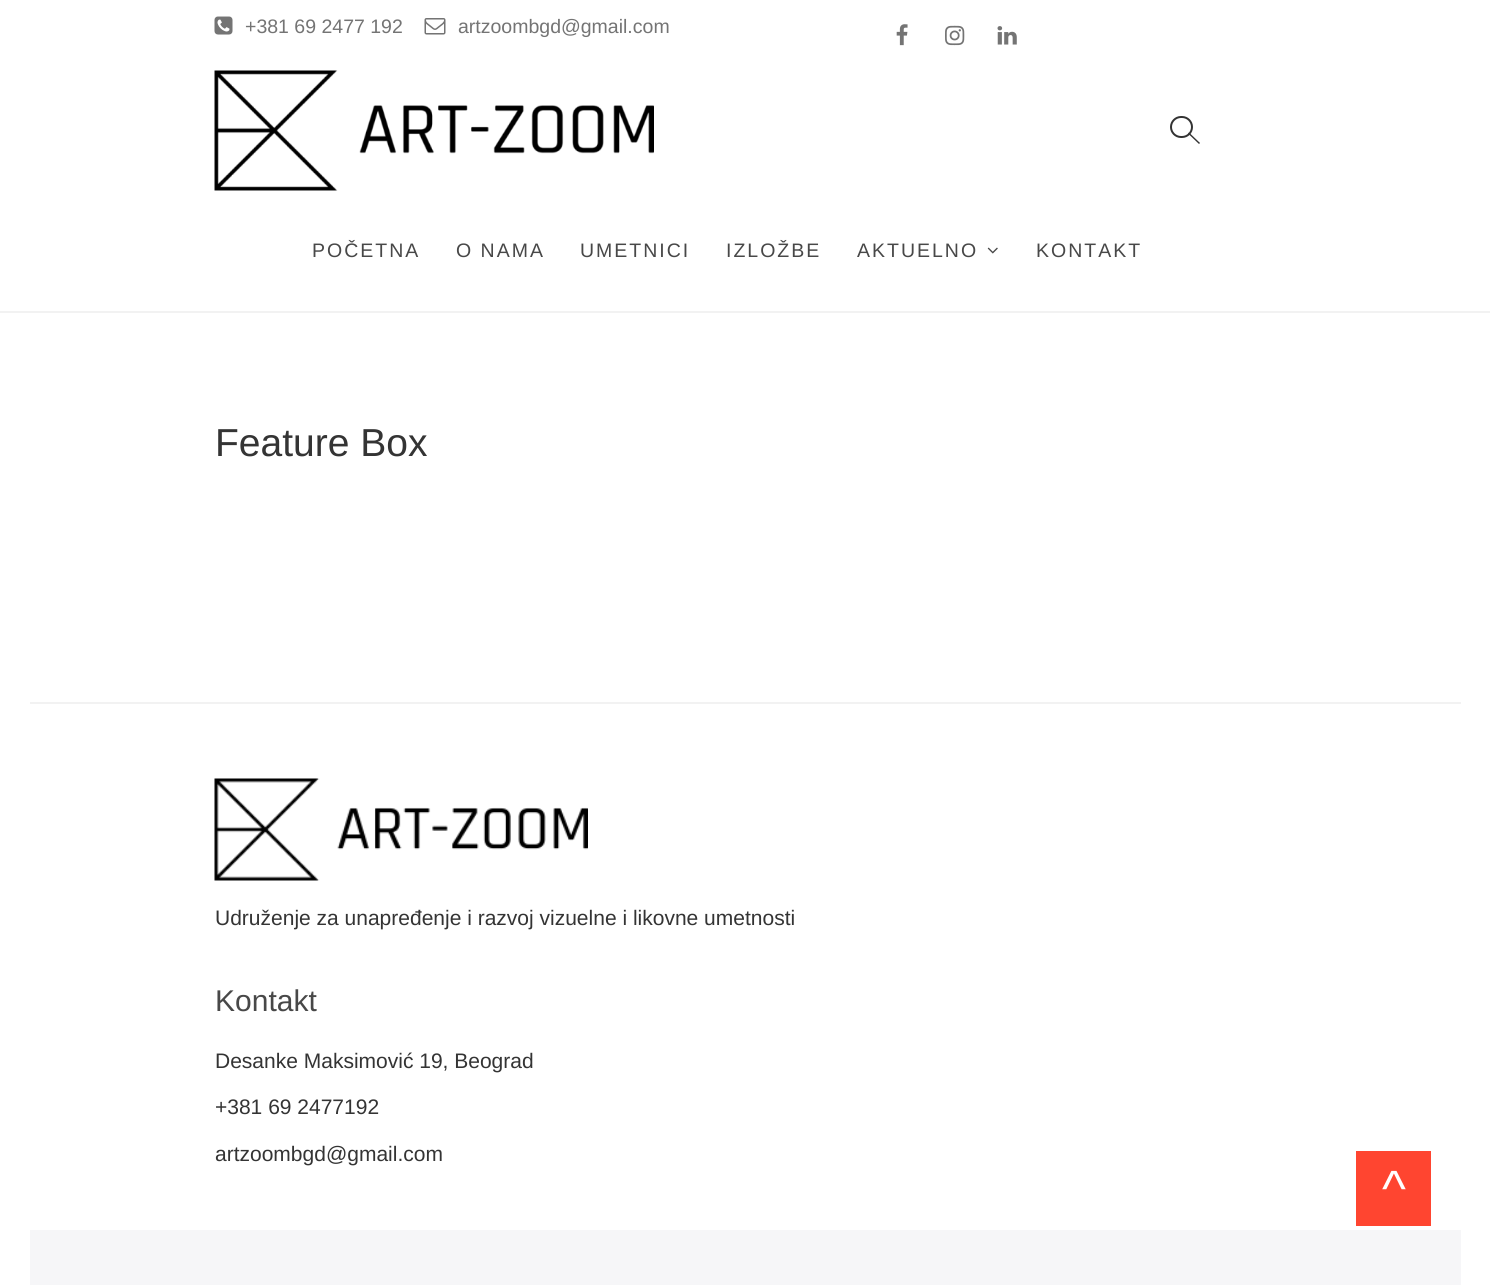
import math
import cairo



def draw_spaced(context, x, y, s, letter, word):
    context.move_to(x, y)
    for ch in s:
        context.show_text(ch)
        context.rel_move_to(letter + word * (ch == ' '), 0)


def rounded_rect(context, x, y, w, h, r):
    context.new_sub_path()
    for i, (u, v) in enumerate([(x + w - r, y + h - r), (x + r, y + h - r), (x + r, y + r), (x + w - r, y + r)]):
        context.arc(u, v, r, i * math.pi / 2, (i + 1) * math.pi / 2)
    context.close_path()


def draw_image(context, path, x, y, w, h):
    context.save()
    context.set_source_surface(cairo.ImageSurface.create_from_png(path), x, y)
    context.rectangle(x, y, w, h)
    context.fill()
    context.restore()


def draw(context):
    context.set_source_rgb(1, 1, 1)
    context.paint()
    draw_image(context, "images/1.png", 214, 16, 19, 19)
    draw_image(context, "images/2.png", 424, 18, 22, 17)
    draw_image(context, "images/3.png", 896, 24, 12, 22)
    draw_image(context, "images/4.png", 945, 25, 20, 21)
    draw_image(context, "images/5.png", 997, 26, 20, 19)
    context.set_source_rgb(242 / 255, 242 / 255, 242 / 255)
    context.rectangle(0, 311, 1490, 2)
    context.fill()
    draw_image(context, "images/6.png", 214, 70, 440, 121)
    rounded_rect(context, 1171, 117, 21, 20, 10)
    context.set_source_rgb(51 / 255, 51 / 255, 51 / 255)
    context.stroke()
    context.new_path()
    context.move_to(1188, 133.5)
    context.line_to(1189, 132.5)
    context.line_to(1200, 143)
    context.line_to(1199, 144)
    context.close_path()
    context.fill()
    draw_image(context, "images/7.png", 987, 247, 11, 7)
    context.set_source_rgb(242 / 255, 242 / 255, 242 / 255)
    context.rectangle(30, 702, 1431, 2)
    context.fill()
    draw_image(context, "images/8.png", 214, 778, 374, 103)
    context.set_source_rgb(1, 69 / 255, 48 / 255)
    context.rectangle(1356, 1151, 75, 75)
    context.fill()
    context.set_source_rgb(246 / 255, 246 / 255, 248 / 255)
    context.rectangle(30, 1230, 1431, 55)
    context.fill()
    context.select_font_face("Arimo")
    context.set_font_size(19.5)
    context.set_source_rgb(116 / 255, 116 / 255, 116 / 255)
    context.move_to(245, 33)
    context.show_text("+381 69 2477 192")
    context.move_to(458, 33)
    context.show_text("artzoombgd@gmail.com")
    context.set_source_rgb(72 / 255, 72 / 255, 72 / 255)
    draw_spaced(context, 312, 257, "POČETNA", 2, 0)
    draw_spaced(context, 456, 257, "O NAMA", 2, 0)
    draw_spaced(context, 580, 257, "UMETNICI", 2, 0)
    draw_spaced(context, 726, 257, "IZLOŽBE", 2, 0)
    draw_spaced(context, 857, 257, "AKTUELNO", 2, 0)
    draw_spaced(context, 1036, 257, "KONTAKT", 2, 0)
    context.set_font_size(39)
    context.set_source_rgb(52 / 255, 52 / 255, 52 / 255)
    context.move_to(215, 456)
    context.show_text("Feature Box")
    context.set_font_size(21)
    context.move_to(215, 925)
    context.show_text("Udruženje za unapređenje i razvoj vizuelne i likovne umetnosti")
    context.set_font_size(30)
    context.set_source_rgb(72 / 255, 72 / 255, 72 / 255)
    context.move_to(215, 1011)
    context.show_text("Kontakt")
    context.set_font_size(21)
    context.set_source_rgb(52 / 255, 52 / 255, 52 / 255)
    context.move_to(215, 1068)
    context.show_text("Desanke Maksimović 19, Beograd")
    context.move_to(215, 1114)
    context.show_text("+381 69 2477192")
    context.move_to(215, 1161)
    context.show_text("artzoombgd@gmail.com")
    context.set_font_size(51)
    context.set_source_rgb(1, 1, 1)
    context.move_to(1382, 1206)
    context.show_text("^")


surface = cairo.ImageSurface(cairo.Format.RGB24, 1490, 1285)
context = cairo.Context(surface)
options = cairo.FontOptions()
options.set_hint_metrics(cairo.HintMetrics.OFF)
options.set_hint_style(cairo.HintStyle.NONE)
context.set_font_options(options)
context.set_miter_limit(4)
draw(context)
surface.write_to_png("out.png")
